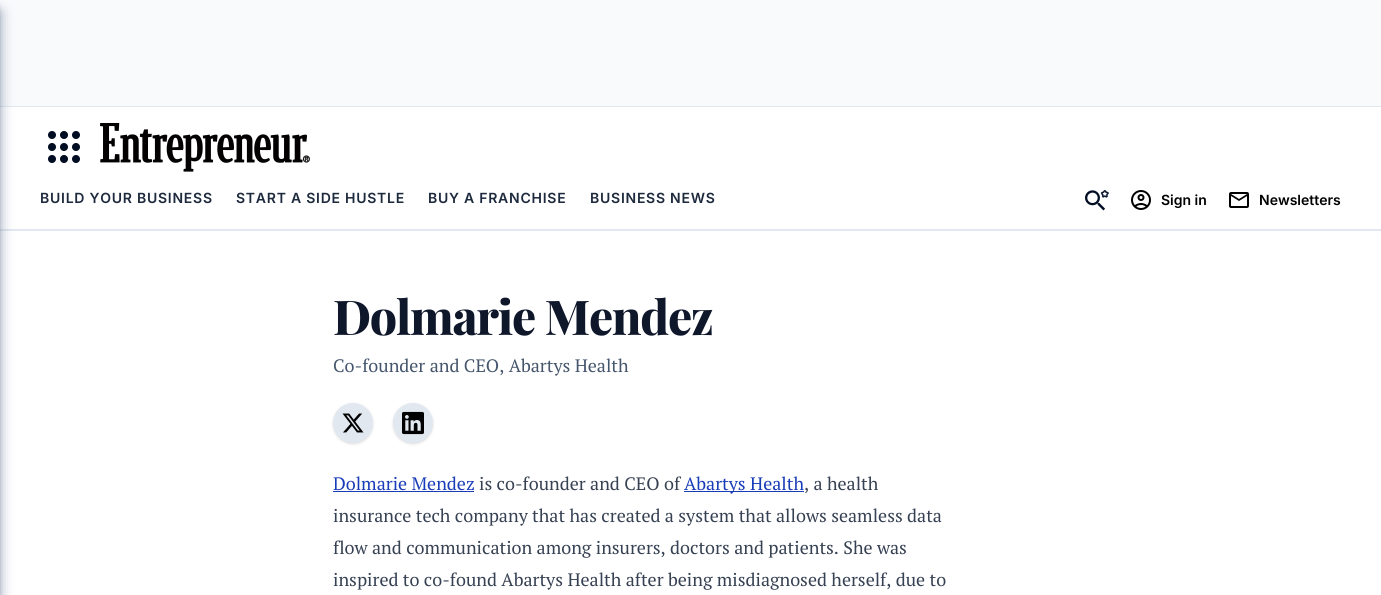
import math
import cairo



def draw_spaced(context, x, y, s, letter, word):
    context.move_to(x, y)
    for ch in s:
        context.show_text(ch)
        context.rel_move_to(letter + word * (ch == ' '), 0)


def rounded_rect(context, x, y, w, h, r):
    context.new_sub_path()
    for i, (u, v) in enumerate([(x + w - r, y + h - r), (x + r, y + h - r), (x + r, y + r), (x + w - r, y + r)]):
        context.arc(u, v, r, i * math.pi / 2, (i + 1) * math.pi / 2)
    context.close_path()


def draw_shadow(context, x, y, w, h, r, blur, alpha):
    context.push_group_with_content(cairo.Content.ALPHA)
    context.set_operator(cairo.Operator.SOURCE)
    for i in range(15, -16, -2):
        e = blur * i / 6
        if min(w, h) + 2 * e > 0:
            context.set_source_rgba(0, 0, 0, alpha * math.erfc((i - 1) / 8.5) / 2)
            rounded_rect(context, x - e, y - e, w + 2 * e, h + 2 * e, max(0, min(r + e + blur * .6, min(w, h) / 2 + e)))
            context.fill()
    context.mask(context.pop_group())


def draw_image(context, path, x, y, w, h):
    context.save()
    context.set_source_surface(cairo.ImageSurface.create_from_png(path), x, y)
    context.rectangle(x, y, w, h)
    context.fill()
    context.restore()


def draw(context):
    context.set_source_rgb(1, 1, 1)
    context.paint()
    context.set_source_rgb(248 / 255, 250 / 255, 252 / 255)
    context.rectangle(0, 0, 1381, 106)
    context.fill()
    context.set_source_rgb(226 / 255, 232 / 255, 240 / 255)
    context.rectangle(0, 106, 1381, 1)
    context.fill()
    context.rectangle(0, 229, 1381, 2)
    context.fill()
    context.set_source_rgb(98 / 255, 116 / 255, 142 / 255)
    draw_shadow(context, -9, 8, 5, 587, 0, 3, 1)
    draw_shadow(context, -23, 13, 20, 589, 0, 7.5, 1)
    draw_image(context, "images/1.png", 48, 131, 32, 32)
    draw_image(context, "images/2.png", 100, 123, 210, 49)
    draw_image(context, "images/3.png", 1085, 189, 24, 22)
    draw_image(context, "images/4.png", 1131, 190, 20, 20)
    draw_image(context, "images/5.png", 1229, 192, 20, 16)
    context.set_source_rgb(0, 0, 0)
    draw_shadow(context, 334, 405, 38, 38, 19, 1, 0.1)
    draw_shadow(context, 333, 404, 40, 40, 20, 1.5, 0.1)
    context.set_source_rgb(226 / 255, 232 / 255, 240 / 255)
    context.arc(353, 423, 20, 0, 2 * math.pi)
    context.fill()
    draw_image(context, "images/6.png", 342, 413, 22, 20)
    context.set_source_rgb(0, 0, 0)
    draw_shadow(context, 394, 405, 38, 38, 19, 1, 0.1)
    draw_shadow(context, 393, 404, 40, 40, 20, 1.5, 0.1)
    context.set_source_rgb(226 / 255, 232 / 255, 240 / 255)
    context.arc(413, 423, 20, 0, 2 * math.pi)
    context.fill()
    draw_image(context, "images/7.png", 402, 411, 22, 24)
    context.set_source_rgb(25 / 255, 60 / 255, 184 / 255)
    context.rectangle(333, 491, 141, 1)
    context.fill()
    context.rectangle(684, 491, 120, 1)
    context.fill()
    context.select_font_face("Inter SemiBold")
    context.set_font_size(14)
    context.set_source_rgb(29 / 255, 41 / 255, 61 / 255)
    draw_spaced(context, 40, 203, "BUILD YOUR BUSINESS", 0.75, 0)
    draw_spaced(context, 236, 203, "START A SIDE HUSTLE", 0.75, 0)
    draw_spaced(context, 428, 203, "BUY A FRANCHISE", 0.75, 0)
    draw_spaced(context, 590, 203, "BUSINESS NEWS", 0.75, 0)
    context.set_source_rgb(0, 0, 0)
    context.move_to(1161, 205)
    context.show_text("Sign in")
    context.move_to(1259, 205)
    context.show_text("Newsletters")
    context.select_font_face("Playfair Display ExtraBold")
    context.set_font_size(48)
    context.set_source_rgb(15 / 255, 23 / 255, 43 / 255)
    draw_spaced(context, 333, 335, "Dolmarie Mendez", -1.25, 0)
    context.select_font_face("PT Serif")
    context.set_font_size(18)
    context.set_source_rgb(69 / 255, 85 / 255, 108 / 255)
    context.move_to(333, 372)
    context.show_text("Co-founder and CEO, Abartys Health")
    context.set_source_rgb(25 / 255, 60 / 255, 184 / 255)
    context.move_to(333, 490)
    context.show_text("Dolmarie Mendez")
    context.set_source_rgb(54 / 255, 65 / 255, 83 / 255)
    context.move_to(479, 490)
    context.show_text("is co-founder and CEO of")
    context.set_source_rgb(25 / 255, 60 / 255, 184 / 255)
    context.move_to(684, 490)
    context.show_text("Abartys Health")
    context.set_source_rgb(54 / 255, 65 / 255, 83 / 255)
    context.move_to(804, 490)
    context.show_text(", a health")
    context.move_to(333, 522)
    context.show_text("insurance tech company that has created a system that allows seamless data")
    context.move_to(333, 554)
    context.show_text("flow and communication among insurers, doctors and patients. She was")
    context.move_to(333, 586)
    context.show_text("inspired to co-found Abartys Health after being misdiagnosed herself, due to")


surface = cairo.ImageSurface(cairo.Format.RGB24, 1381, 595)
context = cairo.Context(surface)
options = cairo.FontOptions()
options.set_hint_metrics(cairo.HintMetrics.OFF)
options.set_hint_style(cairo.HintStyle.NONE)
context.set_font_options(options)
context.set_miter_limit(4)
draw(context)
surface.write_to_png("out.png")
